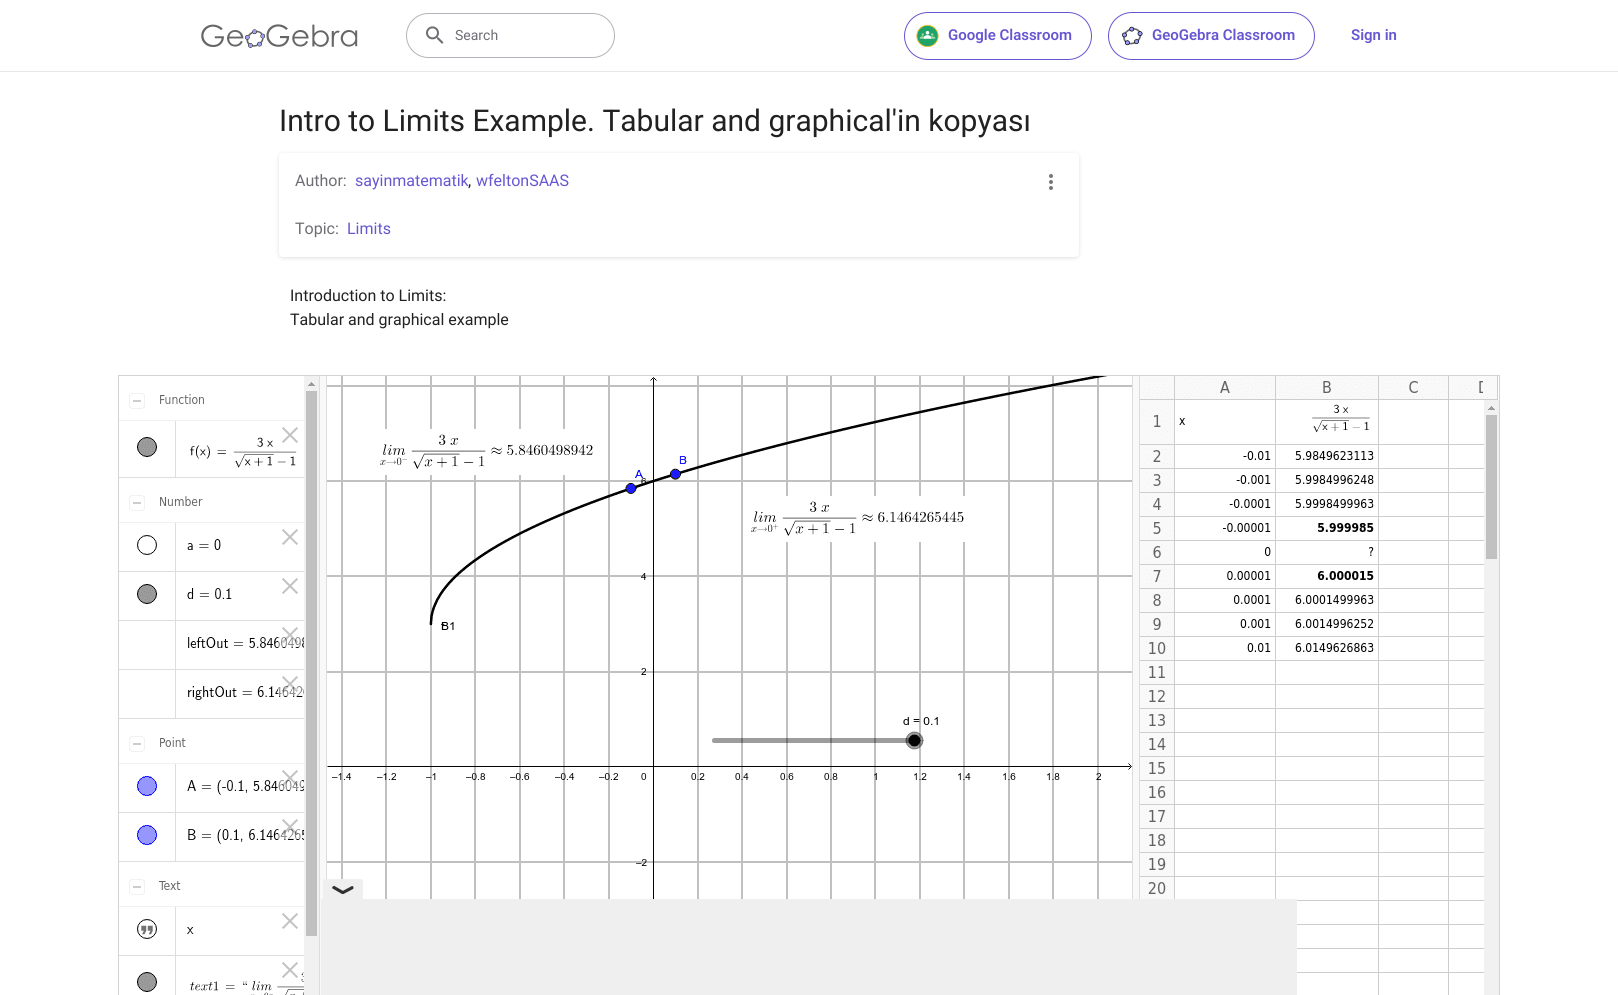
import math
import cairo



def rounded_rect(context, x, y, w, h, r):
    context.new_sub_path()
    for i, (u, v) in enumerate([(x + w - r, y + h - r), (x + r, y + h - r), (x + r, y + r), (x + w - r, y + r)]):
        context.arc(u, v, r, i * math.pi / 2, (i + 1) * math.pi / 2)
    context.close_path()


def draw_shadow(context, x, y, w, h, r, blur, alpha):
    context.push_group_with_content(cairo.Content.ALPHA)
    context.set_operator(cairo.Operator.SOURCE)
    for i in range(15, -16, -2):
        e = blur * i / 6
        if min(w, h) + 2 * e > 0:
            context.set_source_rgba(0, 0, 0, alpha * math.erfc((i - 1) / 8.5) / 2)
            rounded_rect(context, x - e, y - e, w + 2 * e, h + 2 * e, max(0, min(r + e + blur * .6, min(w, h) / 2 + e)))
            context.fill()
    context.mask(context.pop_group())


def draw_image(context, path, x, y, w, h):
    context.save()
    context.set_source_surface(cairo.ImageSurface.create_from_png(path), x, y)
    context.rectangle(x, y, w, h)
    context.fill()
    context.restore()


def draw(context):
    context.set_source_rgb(1, 1, 1)
    context.paint()
    context.set_source_rgb(230 / 255, 230 / 255, 235 / 255)
    context.rectangle(0, 71, 1618, 1)
    context.fill()
    draw_image(context, "images/1.png", 201, 24, 157, 24)
    rounded_rect(context, 406.5, 13.5, 208, 44, 22)
    context.set_source_rgb(180 / 255, 179 / 255, 186 / 255)
    context.set_line_width(1)
    context.stroke()
    draw_image(context, "images/2.png", 426, 26, 18, 18)
    rounded_rect(context, 904.5, 12.5, 187, 47, 23.5)
    context.set_source_rgb(101 / 255, 87 / 255, 210 / 255)
    context.stroke()
    draw_image(context, "images/3.png", 916, 24, 23, 24)
    rounded_rect(context, 1108.5, 12.5, 206, 47, 23.5)
    context.stroke()
    draw_image(context, "images/4.png", 1122, 26, 21, 20)
    context.set_source_rgb(28 / 255, 28 / 255, 31 / 255)
    draw_shadow(context, 279, 154, 800, 104, 4, 2, 0.14)
    context.set_source_rgb(1, 1, 1)
    rounded_rect(context, 279, 153, 800, 104, 4)
    context.fill()
    draw_image(context, "images/5.png", 1049, 174, 4, 16)
    draw_image(context, "images/6.png", 119, 376, 1380, 619)
    context.rectangle(118.5, 375.5, 1381, 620)
    context.set_source_rgb(211 / 255, 211 / 255, 211 / 255)
    context.stroke()
    context.set_source_rgb(239 / 255, 239 / 255, 239 / 255)
    context.new_path()
    context.move_to(325, 879)
    context.line_to(361, 879)
    context.curve_to(362, 879, 363, 880, 363, 881)
    context.line_to(363, 899)
    context.line_to(323, 899)
    context.line_to(323, 881)
    context.curve_to(323, 880, 324, 879, 325, 879)
    context.close_path()
    context.fill()
    context.set_source_rgb(49 / 255, 49 / 255, 49 / 255)
    context.new_path()
    context.move_to(334.5, 886)
    context.line_to(344, 891.5)
    context.curve_to(344.5, 893, 343, 894.5, 342, 894)
    context.line_to(332.5, 888.5)
    context.curve_to(331.5, 887, 333.5, 885.5, 334.5, 886)
    context.close_path()
    context.fill()
    context.new_path()
    context.move_to(342.5, 891)
    context.line_to(352, 886)
    context.curve_to(353.5, 886, 354, 888, 353, 889)
    context.line_to(343.5, 894)
    context.curve_to(342, 894, 341.5, 892, 342.5, 891)
    context.close_path()
    context.fill()
    context.set_source_rgb(239 / 255, 239 / 255, 239 / 255)
    context.rectangle(321, 899, 976, 96)
    context.fill()
    context.select_font_face("Roboto")
    context.set_font_size(14)
    context.set_source_rgb(110 / 255, 109 / 255, 115 / 255)
    context.move_to(455, 40)
    context.show_text("Search")
    context.select_font_face("Roboto SemiBold")
    context.set_font_size(15)
    context.set_source_rgb(101 / 255, 87 / 255, 210 / 255)
    context.move_to(948, 40)
    context.show_text("Google Classroom")
    context.move_to(1152, 40)
    context.show_text("GeoGebra Classroom")
    context.move_to(1351, 40)
    context.show_text("Sign in")
    context.select_font_face("Roboto")
    context.set_font_size(30)
    context.set_source_rgb(33 / 255, 33 / 255, 33 / 255)
    context.move_to(279, 131)
    context.show_text("Intro to Limits Example. Tabular and graphical'in kopyası")
    context.set_font_size(16)
    context.set_source_rgb(110 / 255, 109 / 255, 115 / 255)
    context.move_to(295, 186)
    context.show_text("Author:")
    context.set_source_rgb(101 / 255, 87 / 255, 210 / 255)
    context.move_to(355, 186)
    context.show_text("sayinmatematik")
    context.set_source_rgb(33 / 255, 33 / 255, 33 / 255)
    context.move_to(468, 186)
    context.show_text(",")
    context.set_source_rgb(101 / 255, 87 / 255, 210 / 255)
    context.move_to(476, 186)
    context.show_text("wfeltonSAAS")
    context.set_source_rgb(110 / 255, 109 / 255, 115 / 255)
    context.move_to(295, 234)
    context.show_text("Topic:")
    context.set_source_rgb(101 / 255, 87 / 255, 210 / 255)
    context.move_to(347, 234)
    context.show_text("Limits")
    context.set_source_rgb(33 / 255, 33 / 255, 33 / 255)
    context.move_to(290, 301)
    context.show_text("Introduction to Limits:")
    context.move_to(290, 325)
    context.show_text("Tabular and graphical example")


surface = cairo.ImageSurface(cairo.Format.RGB24, 1618, 995)
context = cairo.Context(surface)
options = cairo.FontOptions()
options.set_hint_metrics(cairo.HintMetrics.OFF)
options.set_hint_style(cairo.HintStyle.NONE)
context.set_font_options(options)
context.set_miter_limit(4)
draw(context)
surface.write_to_png("out.png")
